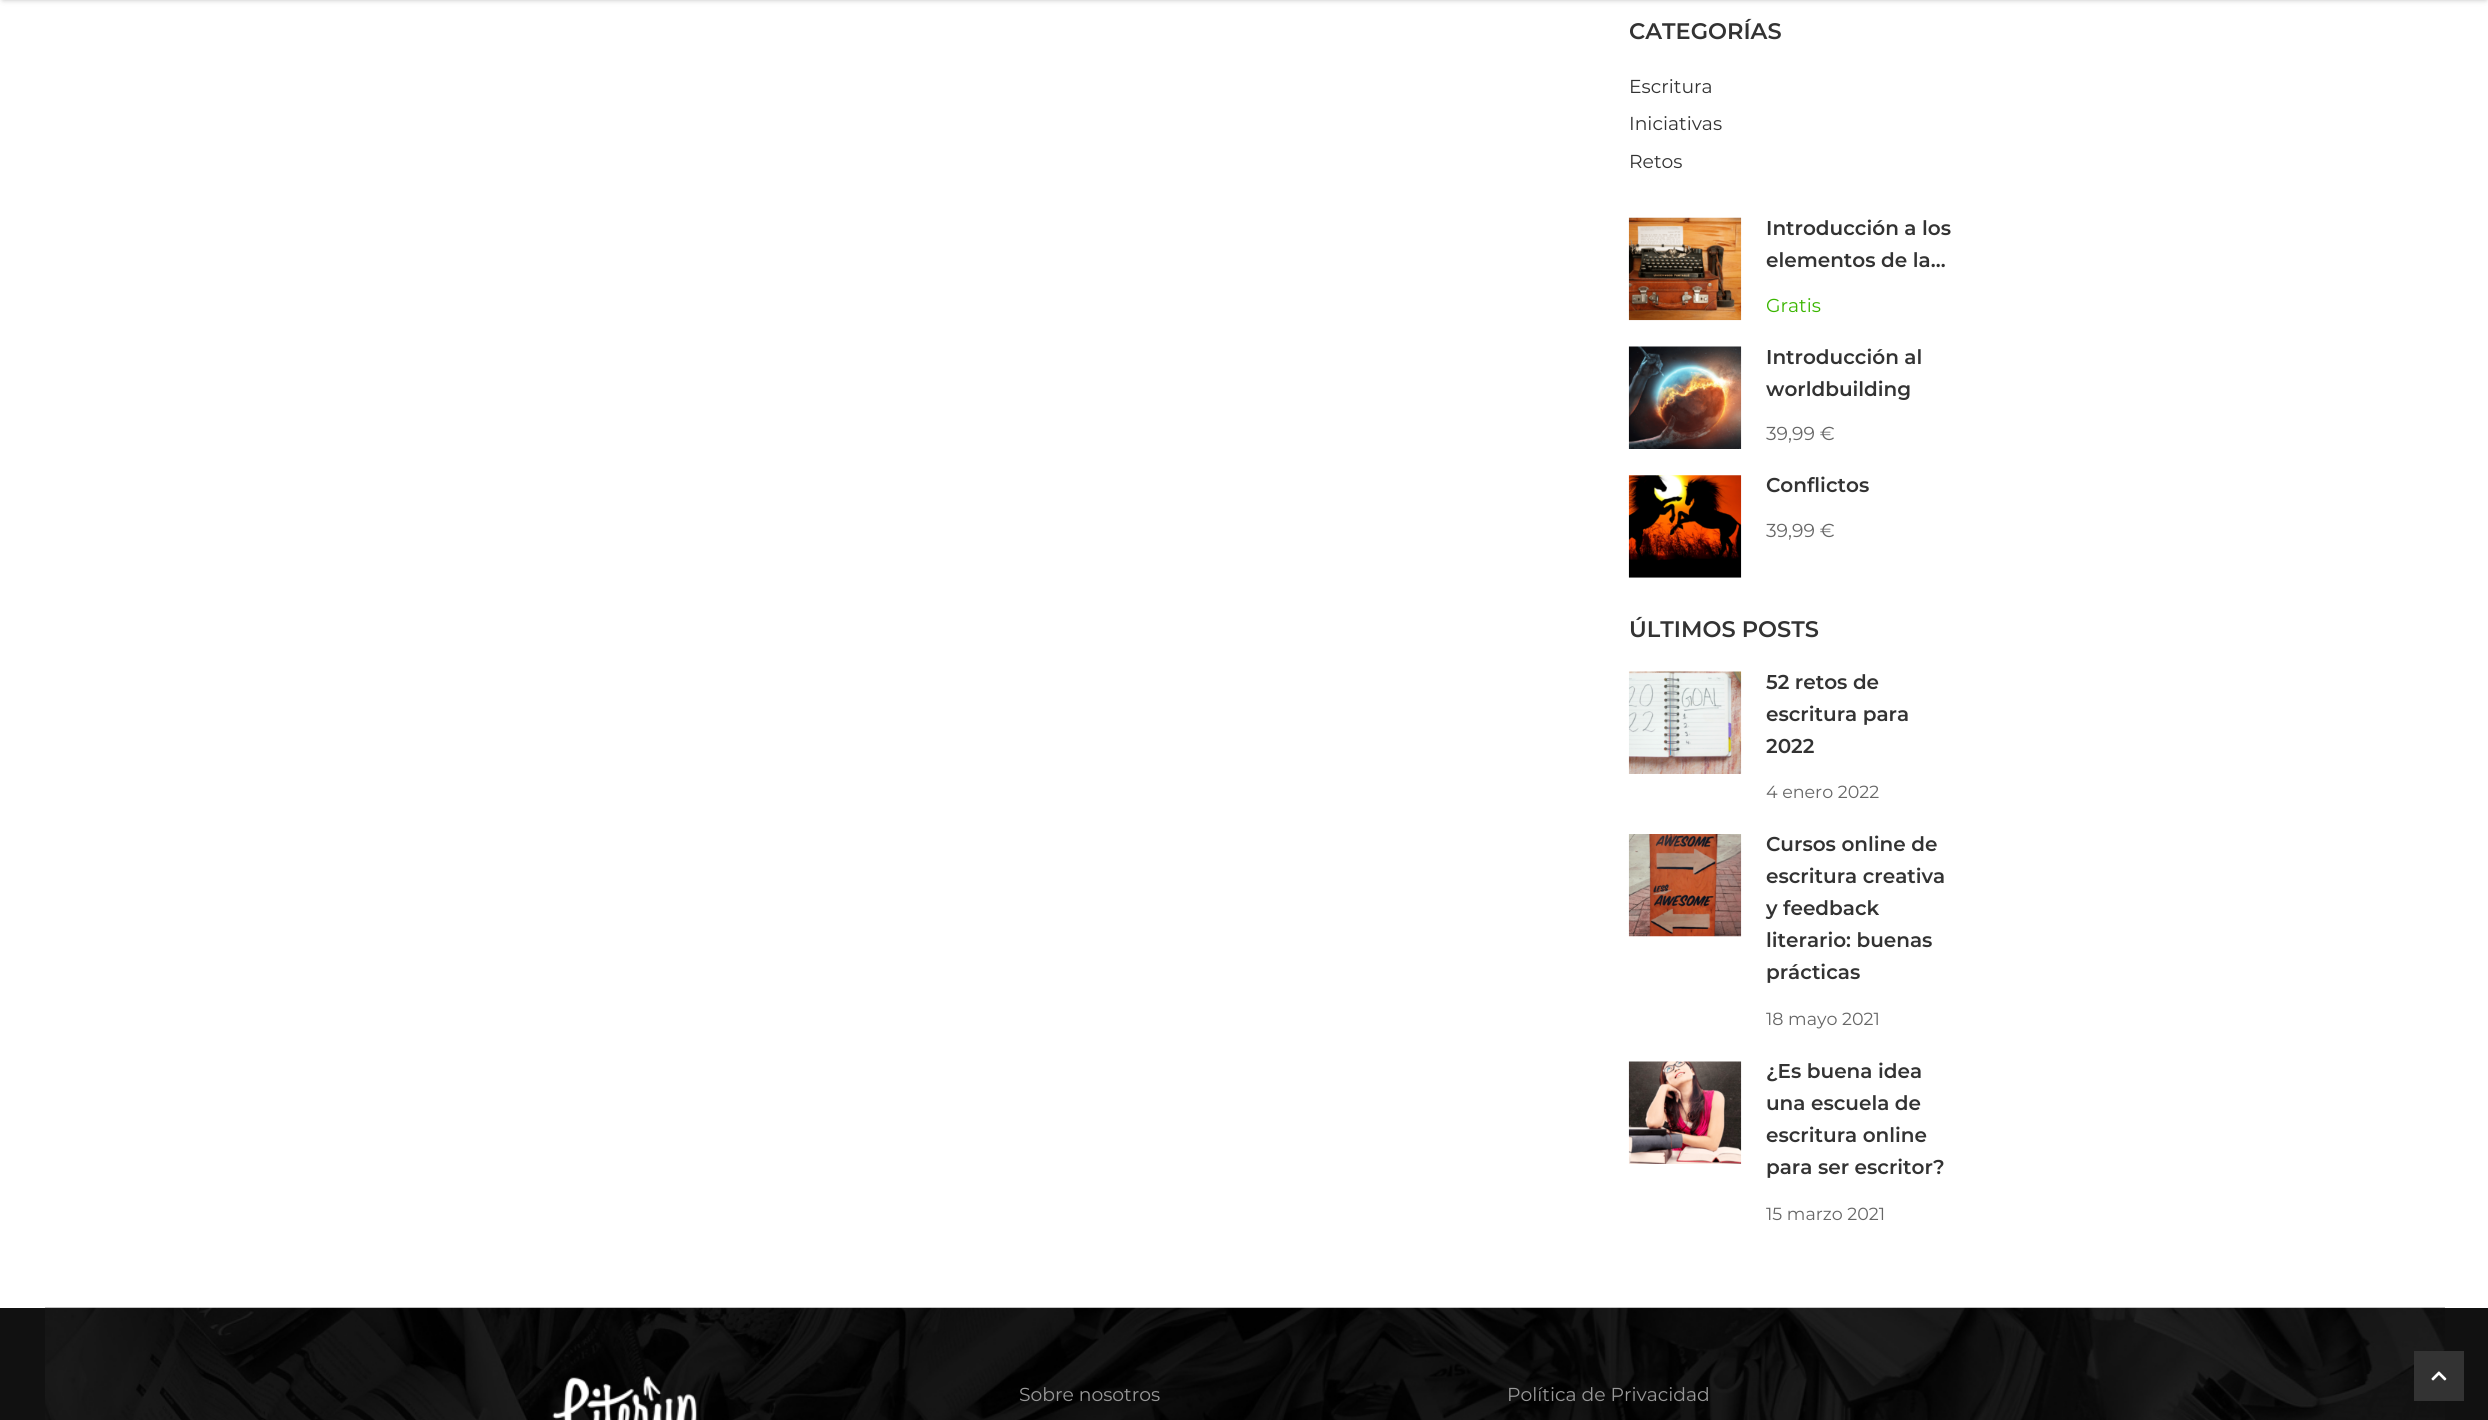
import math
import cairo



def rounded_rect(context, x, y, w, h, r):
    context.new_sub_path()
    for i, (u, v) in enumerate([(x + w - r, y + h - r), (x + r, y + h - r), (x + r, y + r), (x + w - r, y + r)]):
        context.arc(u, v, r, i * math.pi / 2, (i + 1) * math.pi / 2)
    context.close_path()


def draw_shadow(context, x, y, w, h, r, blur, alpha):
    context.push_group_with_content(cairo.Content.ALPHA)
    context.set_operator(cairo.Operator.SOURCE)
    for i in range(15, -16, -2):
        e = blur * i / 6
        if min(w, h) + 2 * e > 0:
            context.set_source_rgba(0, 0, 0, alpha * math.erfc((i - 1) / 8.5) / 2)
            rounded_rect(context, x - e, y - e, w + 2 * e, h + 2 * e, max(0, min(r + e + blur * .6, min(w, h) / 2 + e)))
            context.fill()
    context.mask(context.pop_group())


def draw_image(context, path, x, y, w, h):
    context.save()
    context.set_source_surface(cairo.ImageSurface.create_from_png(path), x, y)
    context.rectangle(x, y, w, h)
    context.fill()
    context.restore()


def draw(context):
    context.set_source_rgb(1, 1, 1)
    context.paint()
    context.set_source_rgb(42 / 255, 42 / 255, 42 / 255)
    draw_shadow(context, 3, -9, 2483, 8, 0, 3, 0.4)
    draw_image(context, "images/1.png", 1628, 217, 114, 104)
    draw_image(context, "images/2.png", 1628, 346, 114, 103)
    draw_image(context, "images/3.png", 1628, 475, 114, 103)
    draw_image(context, "images/4.png", 1628, 671, 114, 103)
    draw_image(context, "images/5.png", 1628, 834, 114, 103)
    draw_image(context, "images/6.png", 1628, 1061, 114, 103)
    context.set_source_rgb(17 / 255, 17 / 255, 17 / 255)
    context.rectangle(0, 1308, 2488, 112)
    context.fill()
    draw_image(context, "images/7.png", 45, 1307, 2400, 113)
    draw_image(context, "images/8.png", 552, 1376, 145, 44)
    context.set_source_rgb(51 / 255, 51 / 255, 51 / 255)
    context.rectangle(2414, 1351, 50, 50)
    context.fill()
    draw_image(context, "images/9.png", 2431, 1371, 16, 10)
    context.select_font_face("Montserrat SemiBold")
    context.set_font_size(22.5)
    context.move_to(1629, 39)
    context.show_text("CATEGORÍAS")
    context.select_font_face("Montserrat")
    context.set_font_size(18.75)
    context.move_to(1629, 93)
    context.show_text("Escritura")
    context.move_to(1629, 130)
    context.show_text("Iniciativas")
    context.move_to(1629, 168)
    context.show_text("Retos")
    context.select_font_face("Montserrat SemiBold")
    context.set_font_size(20)
    context.move_to(1766, 235)
    context.show_text("Introducción a los")
    context.move_to(1766, 267)
    context.show_text("elementos de la…")
    context.select_font_face("Montserrat")
    context.set_font_size(18.75)
    context.set_source_rgb(58 / 255, 181 / 255, 0)
    context.move_to(1766, 312)
    context.show_text("Gratis")
    context.select_font_face("Montserrat SemiBold")
    context.set_font_size(20)
    context.set_source_rgb(51 / 255, 51 / 255, 51 / 255)
    context.move_to(1766, 364)
    context.show_text("Introducción al")
    context.move_to(1766, 396)
    context.show_text("worldbuilding")
    context.select_font_face("Montserrat")
    context.set_font_size(18.75)
    context.set_source_rgb(102 / 255, 102 / 255, 102 / 255)
    context.move_to(1766, 440)
    context.show_text("39,99 €")
    context.select_font_face("Montserrat SemiBold")
    context.set_font_size(20)
    context.set_source_rgb(51 / 255, 51 / 255, 51 / 255)
    context.move_to(1766, 492)
    context.show_text("Conflictos")
    context.select_font_face("Montserrat")
    context.set_font_size(18.75)
    context.set_source_rgb(102 / 255, 102 / 255, 102 / 255)
    context.move_to(1766, 537)
    context.show_text("39,99 €")
    context.select_font_face("Montserrat SemiBold")
    context.set_font_size(22.5)
    context.set_source_rgb(51 / 255, 51 / 255, 51 / 255)
    context.move_to(1629, 637)
    context.show_text("ÚLTIMOS POSTS")
    context.set_font_size(20)
    context.move_to(1766, 689)
    context.show_text("52 retos de")
    context.move_to(1766, 721)
    context.show_text("escritura para")
    context.move_to(1766, 753)
    context.show_text("2022")
    context.select_font_face("Montserrat")
    context.set_font_size(17.5)
    context.set_source_rgb(102 / 255, 102 / 255, 102 / 255)
    context.move_to(1766, 798)
    context.show_text("4 enero 2022")
    context.select_font_face("Montserrat SemiBold")
    context.set_font_size(20)
    context.set_source_rgb(51 / 255, 51 / 255, 51 / 255)
    context.move_to(1766, 851)
    context.show_text("Cursos online de")
    context.move_to(1766, 883)
    context.show_text("escritura creativa")
    context.move_to(1766, 915)
    context.show_text("y feedback")
    context.move_to(1766, 947)
    context.show_text("literario: buenas")
    context.move_to(1766, 979)
    context.show_text("prácticas")
    context.select_font_face("Montserrat")
    context.set_font_size(17.5)
    context.set_source_rgb(102 / 255, 102 / 255, 102 / 255)
    context.move_to(1766, 1025)
    context.show_text("18 mayo 2021")
    context.select_font_face("Montserrat SemiBold")
    context.set_font_size(20)
    context.set_source_rgb(51 / 255, 51 / 255, 51 / 255)
    context.move_to(1766, 1078)
    context.show_text("¿Es buena idea")
    context.move_to(1766, 1110)
    context.show_text("una escuela de")
    context.move_to(1766, 1142)
    context.show_text("escritura online")
    context.move_to(1766, 1174)
    context.show_text("para ser escritor?")
    context.select_font_face("Montserrat")
    context.set_font_size(17.5)
    context.set_source_rgb(102 / 255, 102 / 255, 102 / 255)
    context.move_to(1766, 1220)
    context.show_text("15 marzo 2021")
    context.set_font_size(18.75)
    context.set_source_rgb(153 / 255, 153 / 255, 153 / 255)
    context.move_to(1019, 1401)
    context.show_text("Sobre nosotros")
    context.move_to(1507, 1401)
    context.show_text("Política de Privacidad")


surface = cairo.ImageSurface(cairo.Format.RGB24, 2488, 1420)
context = cairo.Context(surface)
options = cairo.FontOptions()
options.set_hint_metrics(cairo.HintMetrics.OFF)
options.set_hint_style(cairo.HintStyle.NONE)
context.set_font_options(options)
context.set_miter_limit(4)
draw(context)
surface.write_to_png("out.png")
